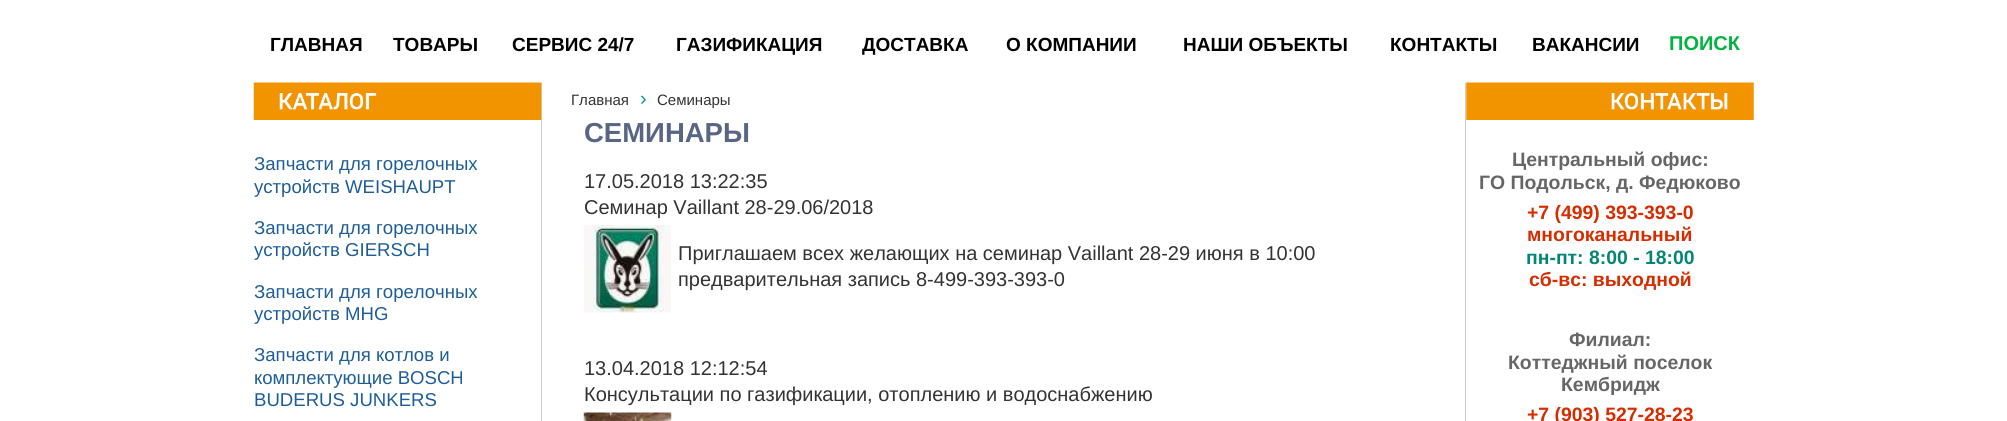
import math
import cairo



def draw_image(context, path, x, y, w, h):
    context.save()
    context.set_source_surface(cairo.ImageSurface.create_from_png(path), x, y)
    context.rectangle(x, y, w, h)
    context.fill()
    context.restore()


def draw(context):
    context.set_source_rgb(1, 1, 1)
    context.paint()
    context.set_source_rgb(204 / 255, 204 / 255, 204 / 255)
    context.rectangle(541, 83, 1, 338)
    context.fill()
    draw_image(context, "images/1.png", 253, 82, 289, 38)
    draw_image(context, "images/2.png", 584, 225, 87, 88)
    draw_image(context, "images/3.png", 583, 412, 89, 9)
    context.rectangle(1465, 83, 1, 338)
    context.fill()
    draw_image(context, "images/4.png", 1466, 82, 288, 38)
    context.select_font_face("Liberation Sans", cairo.FontSlant.NORMAL, cairo.FontWeight.BOLD)
    context.set_font_size(19)
    context.set_source_rgb(0, 0, 0)
    context.move_to(270, 51)
    context.show_text("ГЛАВНАЯ")
    context.move_to(393, 51)
    context.show_text("ТОВАРЫ")
    context.move_to(512, 51)
    context.show_text("СЕРВИС 24/7")
    context.move_to(676, 51)
    context.show_text("ГАЗИФИКАЦИЯ")
    context.move_to(862, 51)
    context.show_text("ДОСТАВКА")
    context.move_to(1006, 51)
    context.show_text("О КОМПАНИИ")
    context.move_to(1183, 51)
    context.show_text("НАШИ ОБЪЕКТЫ")
    context.move_to(1390, 51)
    context.show_text("КОНТАКТЫ")
    context.move_to(1532, 51)
    context.show_text("ВАКАНСИИ")
    context.set_font_size(20)
    context.set_source_rgb(0, 180 / 255, 64 / 255)
    context.move_to(1669, 50)
    context.show_text("ПОИСК")
    context.select_font_face("Liberation Sans")
    context.set_font_size(18.6)
    context.set_source_rgb(30 / 255, 93 / 255, 152 / 255)
    context.move_to(254, 170)
    context.show_text("Запчасти для горелочных")
    context.move_to(254, 193)
    context.show_text("устройств WEISHAUPT")
    context.move_to(254, 234)
    context.show_text("Запчасти для горелочных")
    context.move_to(254, 256)
    context.show_text("устройств GIERSCH")
    context.move_to(254, 298)
    context.show_text("Запчасти для горелочных")
    context.move_to(254, 320)
    context.show_text("устройств MHG")
    context.move_to(254, 361)
    context.show_text("Запчасти для котлов и")
    context.move_to(254, 384)
    context.show_text("комплектующие BOSCH")
    context.move_to(254, 406)
    context.show_text("BUDERUS JUNKERS")
    context.set_font_size(15)
    context.set_source_rgb(51 / 255, 51 / 255, 51 / 255)
    context.move_to(571, 105)
    context.show_text("Главная")
    context.set_font_size(20)
    context.set_source_rgb(0, 150 / 255, 170 / 255)
    context.move_to(640, 105)
    context.show_text("›")
    context.set_font_size(15)
    context.set_source_rgb(51 / 255, 51 / 255, 51 / 255)
    context.move_to(657, 105)
    context.show_text("Семинары")
    context.select_font_face("Liberation Sans", cairo.FontSlant.NORMAL, cairo.FontWeight.BOLD)
    context.set_font_size(27.5)
    context.set_source_rgb(88 / 255, 101 / 255, 132 / 255)
    context.move_to(584, 142)
    context.show_text("СЕМИНАРЫ")
    context.select_font_face("Liberation Sans")
    context.set_font_size(20)
    context.set_source_rgb(51 / 255, 51 / 255, 51 / 255)
    context.move_to(584, 188)
    context.show_text("17.05.2018 13:22:35")
    context.move_to(584, 214)
    context.show_text("Семинар Vaillant 28-29.06/2018")
    context.move_to(678, 260)
    context.show_text("Приглашаем всех желающих на семинар Vaillant 28-29 июня в 10:00")
    context.move_to(678, 286)
    context.show_text("предварительная запись 8-499-393-393-0")
    context.move_to(584, 375)
    context.show_text("13.04.2018 12:12:54")
    context.move_to(584, 401)
    context.show_text("Консультации по газификации, отоплению и водоснабжению")
    context.select_font_face("Liberation Sans", cairo.FontSlant.NORMAL, cairo.FontWeight.BOLD)
    context.set_font_size(19.4)
    context.set_source_rgb(102 / 255, 102 / 255, 102 / 255)
    context.move_to(1512, 166)
    context.show_text("Центральный офис:")
    context.move_to(1479, 189)
    context.show_text("ГО Подольск, д. Федюково")
    context.set_source_rgb(214 / 255, 45 / 255, 0)
    context.move_to(1527, 219)
    context.show_text("+7 (499) 393-393-0")
    context.move_to(1527, 241)
    context.show_text("многоканальный")
    context.set_source_rgb(5 / 255, 133 / 255, 118 / 255)
    context.move_to(1526, 264)
    context.show_text("пн-пт: 8:00 - 18:00")
    context.set_source_rgb(214 / 255, 45 / 255, 0)
    context.move_to(1529, 286)
    context.show_text("сб-вс: выходной")
    context.set_source_rgb(102 / 255, 102 / 255, 102 / 255)
    context.move_to(1569, 346)
    context.show_text("Филиал:")
    context.move_to(1508, 369)
    context.show_text("Коттеджный поселок")
    context.move_to(1561, 391)
    context.show_text("Кембридж")
    context.set_source_rgb(214 / 255, 45 / 255, 0)
    context.move_to(1527, 421)
    context.show_text("+7 (903) 527-28-23")


surface = cairo.ImageSurface(cairo.Format.RGB24, 2007, 421)
context = cairo.Context(surface)
options = cairo.FontOptions()
options.set_hint_metrics(cairo.HintMetrics.OFF)
options.set_hint_style(cairo.HintStyle.NONE)
context.set_font_options(options)
context.set_miter_limit(4)
draw(context)
surface.write_to_png("out.png")
